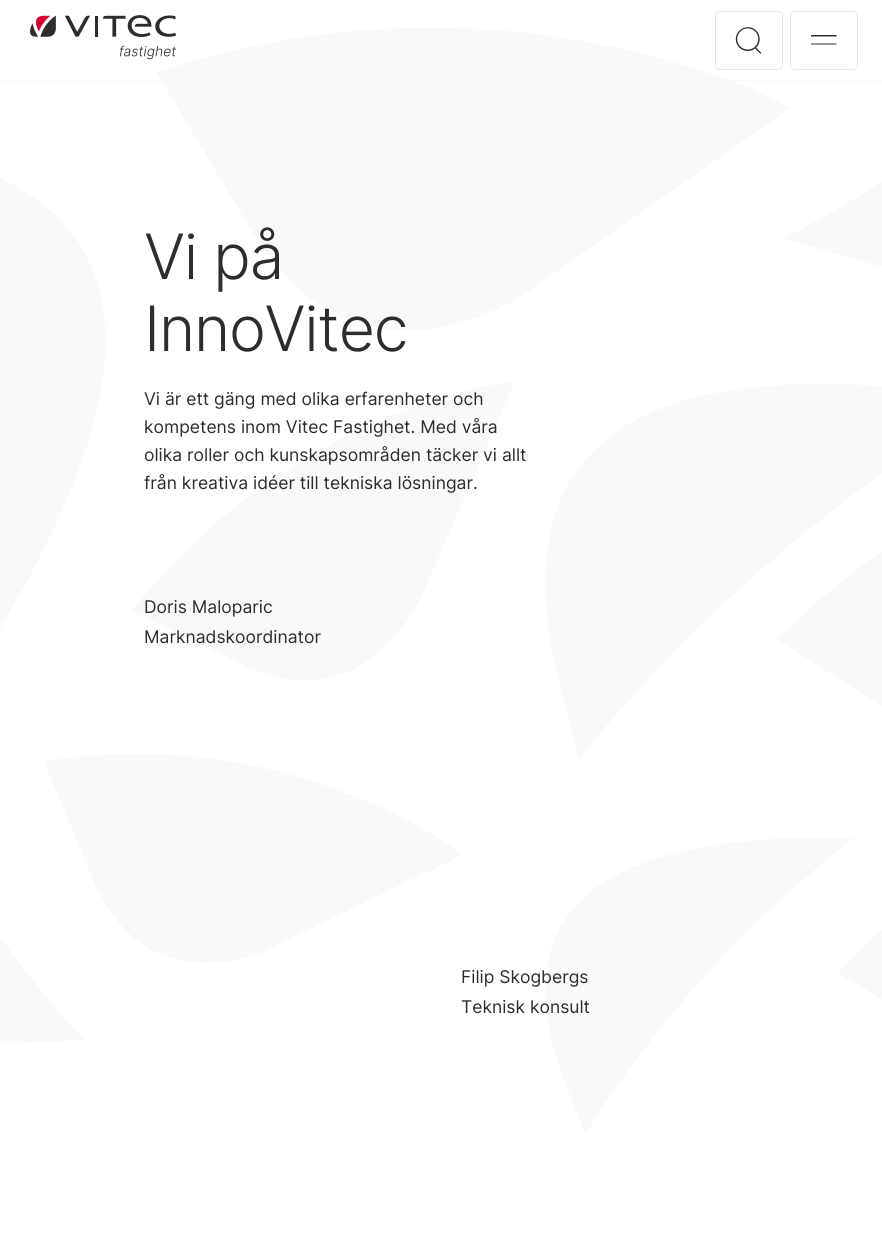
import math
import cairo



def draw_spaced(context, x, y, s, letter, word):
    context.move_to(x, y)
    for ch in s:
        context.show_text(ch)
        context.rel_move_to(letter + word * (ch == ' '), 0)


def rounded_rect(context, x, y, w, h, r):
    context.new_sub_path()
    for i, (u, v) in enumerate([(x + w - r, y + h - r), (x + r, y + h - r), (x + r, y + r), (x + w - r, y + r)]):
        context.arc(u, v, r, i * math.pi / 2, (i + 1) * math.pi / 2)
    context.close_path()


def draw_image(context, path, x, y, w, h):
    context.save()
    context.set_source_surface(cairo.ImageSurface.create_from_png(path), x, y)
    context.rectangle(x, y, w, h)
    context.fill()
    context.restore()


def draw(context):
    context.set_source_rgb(1, 1, 1)
    context.paint()
    draw_image(context, "images/3.png", 0, 28, 882, 1106)
    context.set_source_rgba(231 / 255, 231 / 255, 231 / 255, 0.2)
    context.rectangle(0, 80, 882, 1)
    context.fill()
    draw_image(context, "images/1.png", 30, 15, 146, 45)
    rounded_rect(context, 715.5, 11.5, 67, 58, 4.5)
    context.set_source_rgb(231 / 255, 231 / 255, 231 / 255)
    context.set_line_width(1)
    context.stroke()
    draw_image(context, "images/2.png", 735, 27, 27, 27)
    rounded_rect(context, 790.5, 11.5, 67, 58, 4.5)
    context.stroke()
    context.set_source_rgb(46 / 255, 45 / 255, 44 / 255)
    context.new_path()
    context.move_to(811, 35)
    context.line_to(836.5, 35)
    context.line_to(836.5, 36.5)
    context.line_to(811, 36.5)
    context.close_path()
    context.move_to(811, 43.5)
    context.line_to(836.5, 43.5)
    context.line_to(836.5, 44.5)
    context.line_to(811, 44.5)
    context.close_path()
    context.fill()
    context.select_font_face("Inter Light")
    context.set_font_size(62.5)
    draw_spaced(context, 144, 279, "Vi på", -1.25, 0)
    draw_spaced(context, 144, 351, "InnoVitec", -1.25, 0)
    context.select_font_face("Inter")
    context.set_font_size(17.5)
    context.move_to(144, 405)
    context.show_text("Vi är ett gäng med olika erfarenheter och")
    context.move_to(144, 433)
    context.show_text("kompetens inom Vitec Fastighet. Med våra")
    context.move_to(144, 461)
    context.show_text("olika roller och kunskapsområden täcker vi allt")
    context.move_to(144, 489)
    context.show_text("från kreativa idéer till tekniska lösningar.")
    context.move_to(144, 613)
    context.show_text("Doris Maloparic")
    context.move_to(144, 643)
    context.show_text("Marknadskoordinator")
    context.move_to(461, 983)
    context.show_text("Filip Skogbergs")
    context.move_to(461, 1013)
    context.show_text("Teknisk konsult")


surface = cairo.ImageSurface(cairo.Format.RGB24, 882, 1239)
context = cairo.Context(surface)
options = cairo.FontOptions()
options.set_hint_metrics(cairo.HintMetrics.OFF)
options.set_hint_style(cairo.HintStyle.NONE)
context.set_font_options(options)
context.set_miter_limit(4)
draw(context)
surface.write_to_png("out.png")
